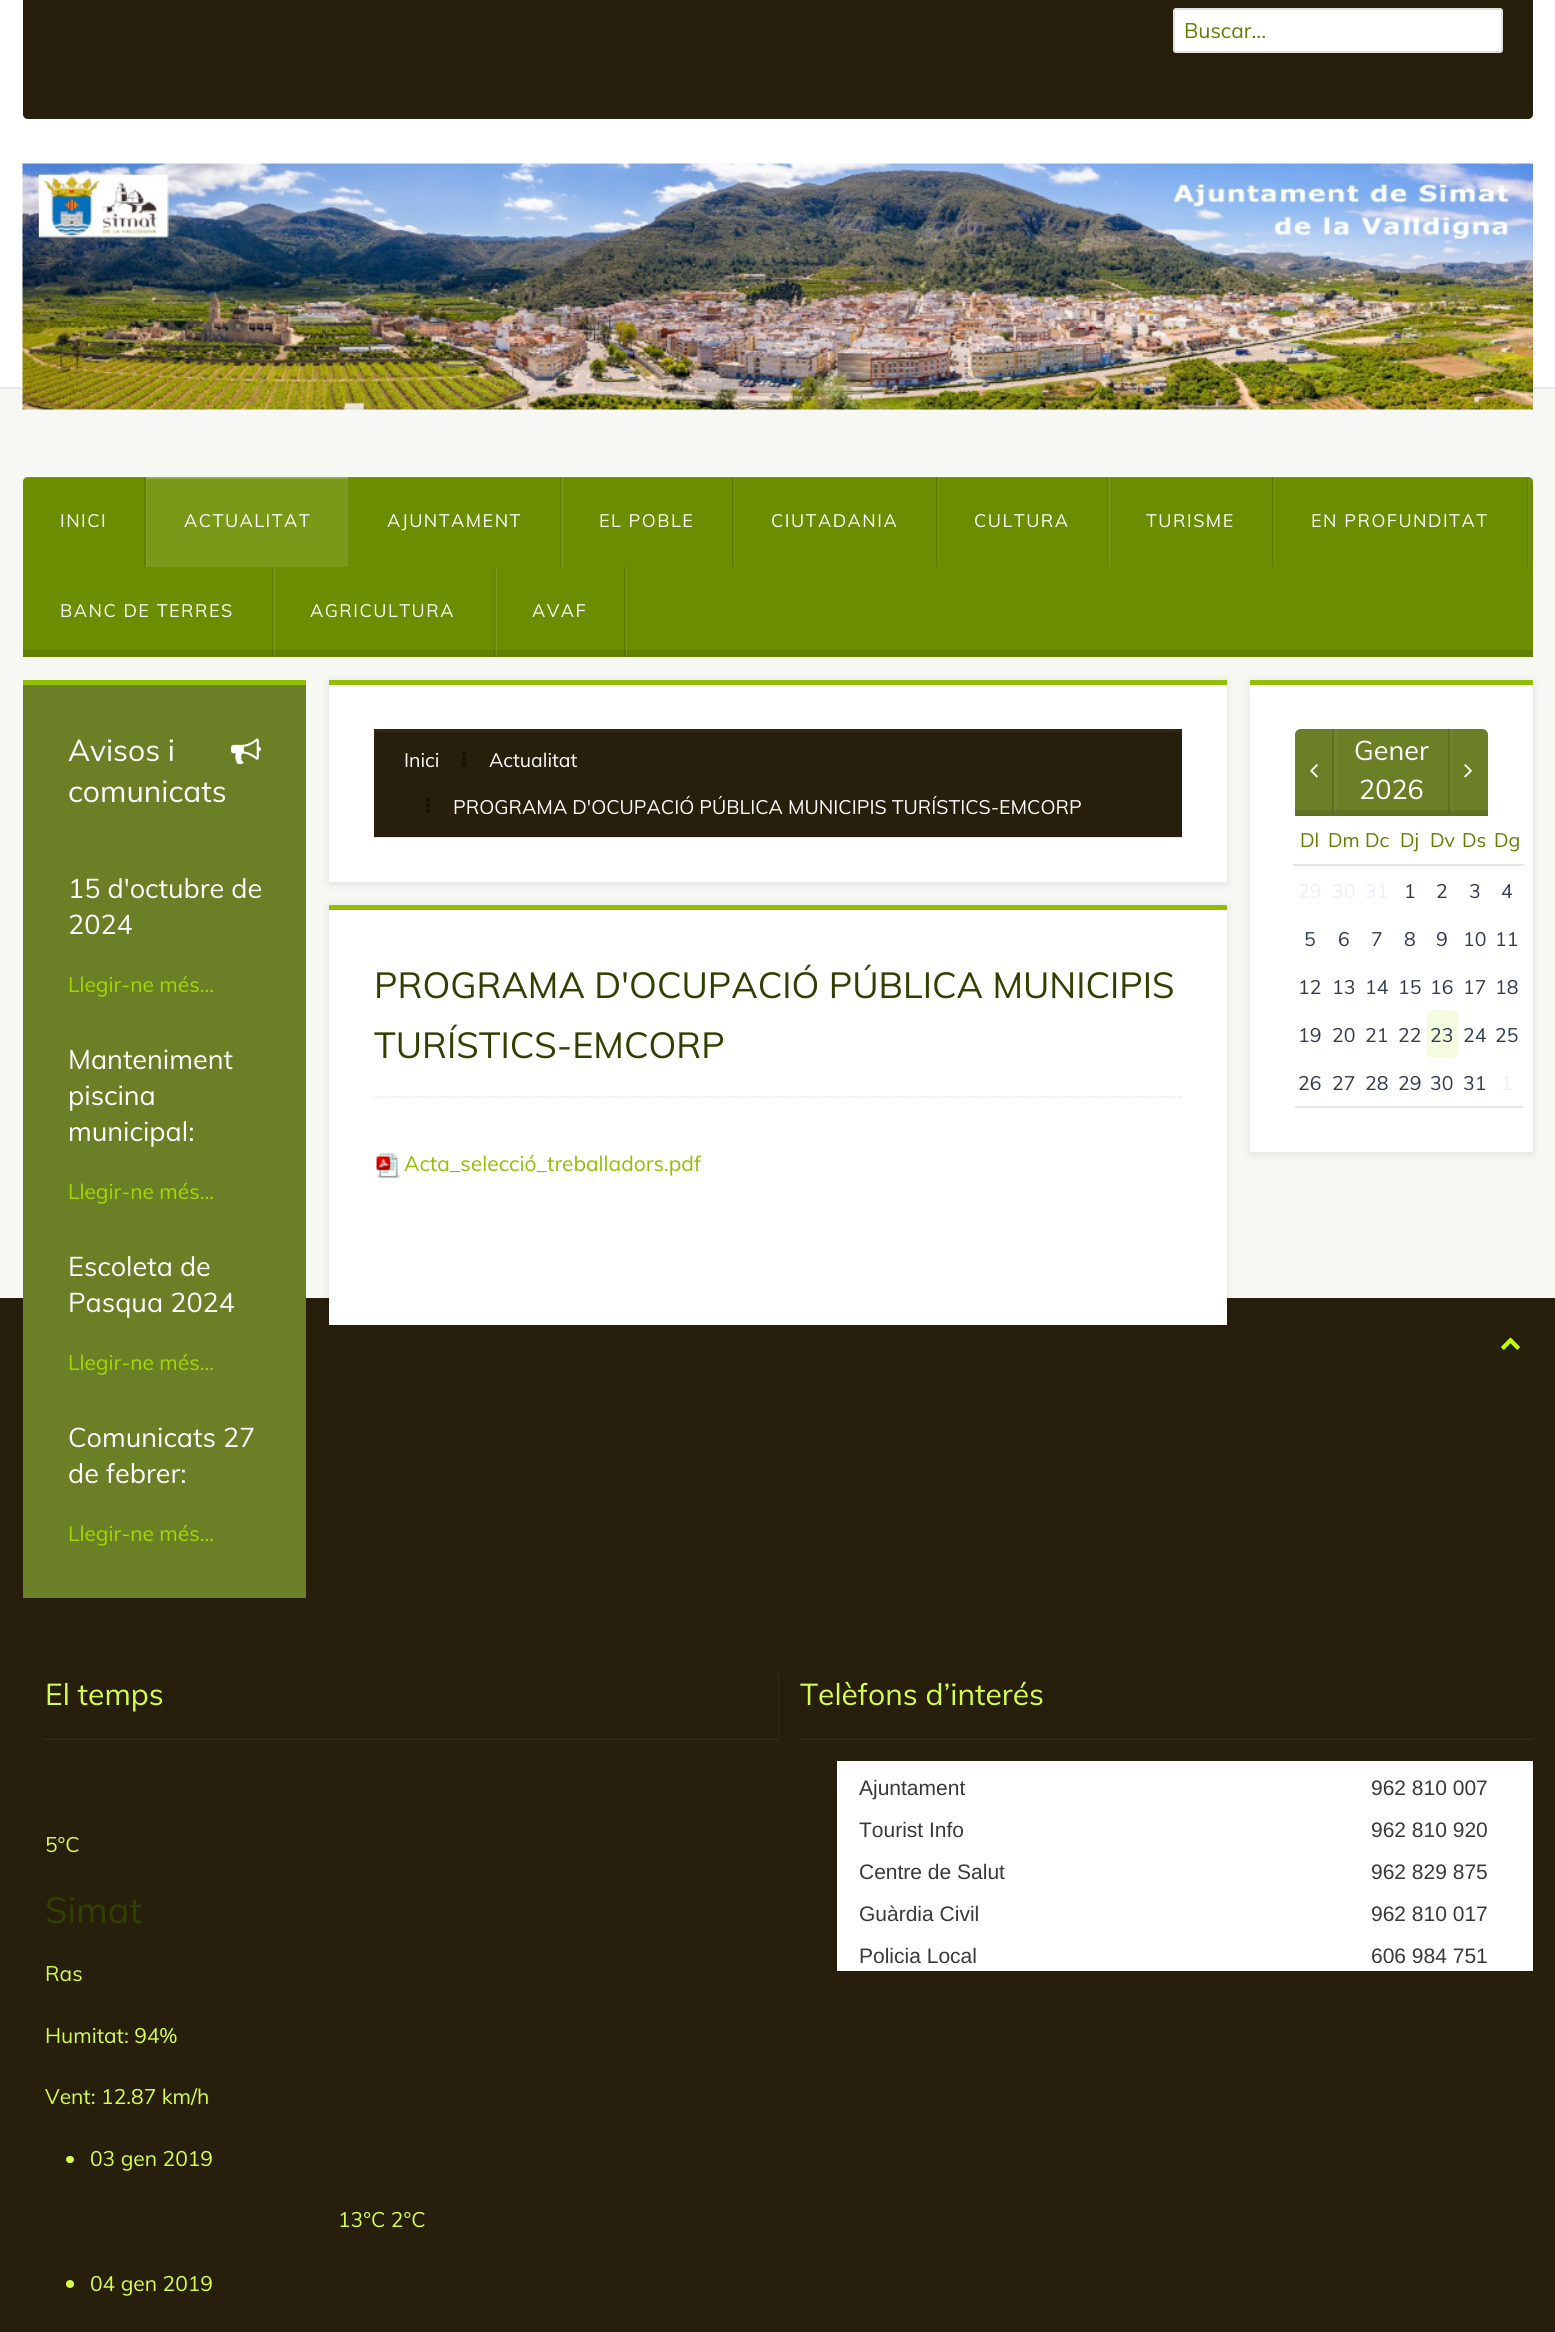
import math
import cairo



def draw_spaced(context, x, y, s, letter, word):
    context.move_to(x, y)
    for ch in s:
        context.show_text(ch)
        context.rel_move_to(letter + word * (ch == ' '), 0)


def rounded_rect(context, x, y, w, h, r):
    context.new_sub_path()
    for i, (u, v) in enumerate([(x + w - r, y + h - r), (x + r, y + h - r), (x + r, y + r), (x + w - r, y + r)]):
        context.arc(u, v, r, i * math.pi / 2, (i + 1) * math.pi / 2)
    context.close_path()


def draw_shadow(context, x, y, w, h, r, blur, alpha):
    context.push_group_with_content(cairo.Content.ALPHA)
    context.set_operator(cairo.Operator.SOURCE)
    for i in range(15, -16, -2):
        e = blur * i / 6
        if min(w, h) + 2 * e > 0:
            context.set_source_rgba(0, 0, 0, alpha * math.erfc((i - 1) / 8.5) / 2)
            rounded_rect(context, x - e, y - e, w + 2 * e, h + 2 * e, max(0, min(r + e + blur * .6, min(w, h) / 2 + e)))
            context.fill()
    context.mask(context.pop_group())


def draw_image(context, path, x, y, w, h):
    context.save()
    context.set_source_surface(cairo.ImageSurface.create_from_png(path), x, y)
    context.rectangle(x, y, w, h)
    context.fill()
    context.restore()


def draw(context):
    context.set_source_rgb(247 / 255, 248 / 255, 243 / 255)
    context.paint()
    context.set_source_rgb(1, 1, 1)
    context.rectangle(0, 0, 1555, 387)
    context.fill()
    context.set_source_rgb(230 / 255, 230 / 255, 230 / 255)
    context.rectangle(0, 387, 1555, 2)
    context.fill()
    context.set_source_rgb(40 / 255, 30 / 255, 12 / 255)
    context.new_path()
    context.move_to(23, 0)
    context.line_to(1533, 0)
    context.line_to(1533, 114)
    context.curve_to(1533, 117, 1531, 119, 1528, 119)
    context.line_to(28, 119)
    context.curve_to(25, 119, 23, 117, 23, 114)
    context.close_path()
    context.fill()
    context.set_source_rgb(1, 1, 1)
    rounded_rect(context, 1173, 8, 330, 45, 3)
    context.fill()
    rounded_rect(context, 1174, 9, 328, 43, 2)
    context.set_source_rgba(0, 0, 0, 0.12)
    context.stroke()
    draw_image(context, "images/1.png", 22, 163, 1511, 247)
    context.set_source_rgb(107 / 255, 142 / 255, 0)
    context.new_path()
    context.move_to(28, 477)
    context.line_to(1528, 477)
    context.curve_to(1531, 477, 1533, 479, 1533, 482)
    context.line_to(1533, 657)
    context.line_to(23, 657)
    context.line_to(23, 482)
    context.curve_to(23, 479, 25, 477, 28, 477)
    context.close_path()
    context.fill()
    context.set_source_rgb(96 / 255, 128 / 255, 0)
    context.rectangle(624, 567, 2, 90)
    context.fill()
    context.set_source_rgb(122 / 255, 153 / 255, 26 / 255)
    context.rectangle(626, 567, 1, 90)
    context.fill()
    context.set_source_rgb(96 / 255, 128 / 255, 0)
    context.rectangle(494, 567, 1, 90)
    context.fill()
    context.set_source_rgb(122 / 255, 153 / 255, 26 / 255)
    context.rectangle(496, 567, 1, 90)
    context.fill()
    context.set_source_rgb(110 / 255, 138 / 255, 23 / 255)
    context.rectangle(495, 567, 1, 90)
    context.fill()
    context.set_source_rgb(96 / 255, 128 / 255, 0)
    context.rectangle(272, 567, 1, 90)
    context.fill()
    context.set_source_rgb(122 / 255, 153 / 255, 26 / 255)
    context.rectangle(274, 567, 1, 90)
    context.fill()
    context.set_source_rgb(110 / 255, 138 / 255, 23 / 255)
    context.rectangle(273, 567, 1, 90)
    context.fill()
    context.set_source_rgba(0, 0, 0, 0.1)
    context.new_path()
    context.move_to(27, 478)
    context.line_to(1528, 478)
    context.curve_to(1531, 478, 1533, 481, 1533, 483)
    context.line_to(1533, 482)
    context.curve_to(1533, 479, 1531, 477, 1528, 477)
    context.line_to(28, 477)
    context.curve_to(26, 477, 24, 478, 23, 480)
    context.curve_to(24, 479, 26, 478, 27, 478)
    context.close_path()
    context.fill()
    context.set_source_rgb(96 / 255, 128 / 255, 0)
    context.rectangle(23, 650, 1510, 7)
    context.fill()
    context.set_source_rgb(86 / 255, 115 / 255, 0)
    context.rectangle(624, 650, 2, 7)
    context.fill()
    context.set_source_rgb(112 / 255, 141 / 255, 26 / 255)
    context.rectangle(626, 650, 1, 7)
    context.fill()
    context.set_source_rgb(86 / 255, 115 / 255, 0)
    context.rectangle(494, 650, 1, 7)
    context.fill()
    context.set_source_rgb(112 / 255, 141 / 255, 26 / 255)
    context.rectangle(496, 650, 1, 7)
    context.fill()
    context.set_source_rgb(101 / 255, 127 / 255, 23 / 255)
    context.rectangle(495, 650, 1, 7)
    context.fill()
    context.set_source_rgb(86 / 255, 115 / 255, 0)
    context.rectangle(272, 650, 1, 7)
    context.fill()
    context.set_source_rgb(112 / 255, 141 / 255, 26 / 255)
    context.rectangle(274, 650, 1, 7)
    context.fill()
    context.set_source_rgb(101 / 255, 127 / 255, 23 / 255)
    context.rectangle(273, 650, 1, 7)
    context.fill()
    context.set_source_rgba(1, 1, 1, 0.15)
    context.new_path()
    context.move_to(27, 478)
    context.line_to(1528, 478)
    context.curve_to(1531, 478, 1533, 481, 1533, 483)
    context.line_to(1533, 482)
    context.curve_to(1533, 479, 1531, 477, 1528, 477)
    context.line_to(28, 477)
    context.curve_to(26, 477, 24, 478, 23, 480)
    context.curve_to(24, 479, 26, 478, 27, 478)
    context.close_path()
    context.fill()
    context.set_source_rgba(1, 1, 1, 0.1)
    context.rectangle(146, 477, 1, 90)
    context.fill()
    context.set_source_rgba(0, 0, 0, 0.1)
    context.rectangle(144, 477, 2, 90)
    context.fill()
    context.set_source_rgba(1, 1, 1, 0.1)
    context.rectangle(146, 477, 204, 90)
    context.fill()
    context.set_source_rgba(1, 1, 1, 0.15)
    context.rectangle(146, 477, 202, 2)
    context.fill()
    context.set_source_rgba(0, 0, 0, 0.1)
    context.rectangle(348, 477, 2, 90)
    context.fill()
    context.set_source_rgba(1, 1, 1, 0.1)
    context.rectangle(561, 477, 2, 90)
    context.fill()
    context.set_source_rgba(0, 0, 0, 0.1)
    context.rectangle(560, 477, 2, 90)
    context.fill()
    context.set_source_rgba(1, 1, 1, 0.1)
    context.rectangle(734, 477, 1, 90)
    context.fill()
    context.set_source_rgba(0, 0, 0, 0.1)
    context.rectangle(732, 477, 2, 90)
    context.fill()
    context.set_source_rgba(1, 1, 1, 0.1)
    context.rectangle(938, 477, 1, 90)
    context.fill()
    context.set_source_rgba(0, 0, 0, 0.1)
    context.rectangle(936, 477, 2, 90)
    context.fill()
    context.set_source_rgba(1, 1, 1, 0.1)
    context.rectangle(1108, 477, 2, 90)
    context.fill()
    context.set_source_rgba(0, 0, 0, 0.1)
    context.rectangle(1107, 477, 2, 90)
    context.fill()
    context.set_source_rgba(1, 1, 1, 0.1)
    context.rectangle(1274, 477, 1, 90)
    context.fill()
    context.set_source_rgba(0, 0, 0, 0.1)
    context.rectangle(1272, 477, 2, 90)
    context.fill()
    context.set_source_rgba(1, 1, 1, 0.1)
    context.rectangle(1528, 477, 2, 90)
    context.fill()
    context.set_source_rgba(0, 0, 0, 0.1)
    context.rectangle(1527, 477, 2, 90)
    context.fill()
    context.set_source_rgb(40 / 255, 30 / 255, 12 / 255)
    context.rectangle(0, 1298, 1555, 1034)
    context.fill()
    context.set_source_rgb(106 / 255, 127 / 255, 38 / 255)
    context.rectangle(23, 685, 283, 913)
    context.fill()
    context.set_source_rgb(144 / 255, 191 / 255, 0)
    context.rectangle(23, 680, 283, 5)
    context.fill()
    draw_image(context, "images/2.png", 231, 738, 30, 27)
    context.set_source_rgb(0, 0, 0)
    draw_shadow(context, 329, 681, 898, 203, 0, 4, 0.1)
    context.set_source_rgb(1, 1, 1)
    context.rectangle(329, 685, 898, 197)
    context.fill()
    context.set_source_rgb(230 / 255, 230 / 255, 230 / 255)
    context.rectangle(374, 837, 808, 1)
    context.fill()
    context.set_source_rgb(144 / 255, 191 / 255, 0)
    context.rectangle(329, 680, 898, 5)
    context.fill()
    context.set_source_rgb(40 / 255, 30 / 255, 12 / 255)
    context.rectangle(374, 732, 808, 104)
    context.fill()
    context.set_source_rgb(36 / 255, 27 / 255, 11 / 255)
    context.rectangle(374, 836, 808, 1)
    context.fill()
    context.set_source_rgb(51 / 255, 41 / 255, 24 / 255)
    context.rectangle(374, 731, 808, 1)
    context.fill()
    context.set_source_rgb(46 / 255, 37 / 255, 22 / 255)
    context.rectangle(374, 729, 808, 2)
    context.fill()
    draw_image(context, "images/3.png", 462, 751, 4, 16)
    draw_image(context, "images/4.png", 426, 797, 4, 16)
    context.set_source_rgb(0, 0, 0)
    draw_shadow(context, 329, 906, 898, 420, 0, 4, 0.1)
    context.set_source_rgb(1, 1, 1)
    context.rectangle(329, 910, 898, 415)
    context.fill()
    context.set_source_rgb(144 / 255, 191 / 255, 0)
    context.rectangle(329, 905, 898, 5)
    context.fill()
    context.new_path()
    context.move_to(373.5, 1097)
    context.line_to(1182, 1097)
    context.set_source_rgb(230 / 255, 230 / 255, 230 / 255)
    context.set_line_width(1.5)
    context.set_dash([1.5, 1.5])
    context.stroke()
    draw_image(context, "images/5.png", 376, 1153, 25, 25)
    context.set_source_rgb(0, 0, 0)
    draw_shadow(context, 1250, 681, 283, 473, 0, 4, 0.1)
    context.set_source_rgb(1, 1, 1)
    context.rectangle(1250, 685, 283, 467)
    context.fill()
    context.set_source_rgb(144 / 255, 191 / 255, 0)
    context.rectangle(1250, 680, 283, 5)
    context.fill()
    context.set_source_rgb(106 / 255, 127 / 255, 38 / 255)
    context.new_path()
    context.move_to(1301, 729)
    context.line_to(1482, 729)
    context.curve_to(1485.5, 729, 1488, 731.5, 1488, 735)
    context.line_to(1488, 816)
    context.line_to(1295, 816)
    context.line_to(1295, 735)
    context.curve_to(1295, 731.5, 1297.5, 729, 1301, 729)
    context.close_path()
    context.fill()
    context.set_source_rgb(95 / 255, 114 / 255, 34 / 255)
    context.rectangle(1295, 810, 193, 6)
    context.fill()
    context.set_source_rgb(113 / 255, 133 / 255, 49 / 255)
    context.rectangle(1334, 729, 3, 84)
    context.fill()
    context.set_source_rgb(102 / 255, 120 / 255, 44 / 255)
    context.rectangle(1334, 810, 3, 3)
    context.fill()
    context.set_source_rgb(95 / 255, 114 / 255, 34 / 255)
    context.rectangle(1332, 729, 2, 86)
    context.fill()
    context.set_source_rgb(86 / 255, 103 / 255, 31 / 255)
    context.rectangle(1332, 810, 2, 5)
    context.fill()
    draw_image(context, "images/6.png", 1310, 764, 8, 14)
    context.set_source_rgb(113 / 255, 133 / 255, 49 / 255)
    context.rectangle(1451, 729, 2, 84)
    context.fill()
    context.set_source_rgb(102 / 255, 120 / 255, 44 / 255)
    context.rectangle(1451, 810, 2, 3)
    context.fill()
    context.set_source_rgb(95 / 255, 114 / 255, 34 / 255)
    context.rectangle(1448, 729, 2, 86)
    context.fill()
    context.set_source_rgb(86 / 255, 103 / 255, 31 / 255)
    context.rectangle(1448, 810, 2, 5)
    context.fill()
    draw_image(context, "images/7.png", 1464, 764, 8, 14)
    context.set_source_rgb(230 / 255, 230 / 255, 230 / 255)
    context.rectangle(1295, 1106, 228, 2)
    context.fill()
    context.rectangle(1293, 864, 231, 2)
    context.fill()
    context.set_source_rgb(244 / 255, 252 / 255, 223 / 255)
    rounded_rect(context, 1427, 1010, 31, 48, 5)
    context.fill()
    context.set_source_rgb(36 / 255, 27 / 255, 11 / 255)
    context.rectangle(801, 1736, 732, 2)
    context.fill()
    draw_image(context, "images/8.png", 1501, 1337, 19, 13)
    context.set_source_rgb(51 / 255, 41 / 255, 24 / 255)
    context.new_path()
    context.move_to(45, 1738)
    context.line_to(45, 1740)
    context.line_to(779, 1740)
    context.line_to(779, 1674)
    context.line_to(778, 1674)
    context.line_to(778, 1738)
    context.close_path()
    context.fill()
    context.set_source_rgba(0, 0, 0, 0.1)
    context.rectangle(45, 1736, 734, 3)
    context.fill()
    context.set_source_rgb(211 / 255, 1, 76 / 255)
    rounded_rect(context, 66, 2156, 8, 7, 3.5)
    context.fill()
    context.arc(70, 2284, 4, 0, 2 * math.pi)
    context.fill()
    context.set_source_rgb(51 / 255, 41 / 255, 24 / 255)
    context.rectangle(801, 1739, 732, 1)
    context.fill()
    context.set_source_rgb(46 / 255, 37 / 255, 22 / 255)
    context.rectangle(801, 1738, 732, 1)
    context.fill()
    context.set_source_rgb(1, 1, 1)
    context.rectangle(837, 1761, 696, 210)
    context.fill()
    context.select_font_face("Muli")
    context.set_font_size(21)
    context.set_source_rgb(96 / 255, 127 / 255, 0)
    context.move_to(1184, 38)
    context.show_text("Buscar...")
    context.set_font_size(18)
    context.set_source_rgb(1, 1, 1)
    draw_spaced(context, 60, 527, "INICI", 1.5, 0)
    draw_spaced(context, 184, 527, "ACTUALITAT", 1.5, 0)
    draw_spaced(context, 387, 527, "AJUNTAMENT", 1.5, 0)
    draw_spaced(context, 599, 527, "EL POBLE", 1.5, 0)
    draw_spaced(context, 771, 527, "CIUTADANIA", 1.5, 0)
    draw_spaced(context, 974, 527, "CULTURA", 1.5, 0)
    draw_spaced(context, 1146, 527, "TURISME", 1.5, 0)
    draw_spaced(context, 1311, 527, "EN PROFUNDITAT", 1.5, 0)
    draw_spaced(context, 60, 617, "BANC DE TERRES", 1.5, 0)
    draw_spaced(context, 310, 617, "AGRICULTURA", 1.5, 0)
    draw_spaced(context, 532, 617, "AVAF", 1.5, 0)
    context.set_font_size(30)
    context.move_to(68, 761)
    context.show_text("Avisos i")
    context.move_to(68, 802)
    context.show_text("comunicats")
    context.set_font_size(27)
    context.move_to(68, 898)
    context.show_text("15 d'octubre de")
    context.move_to(68, 934)
    context.show_text("2024")
    context.set_font_size(21)
    context.set_source_rgb(163 / 255, 217 / 255, 0)
    context.move_to(68, 992)
    context.show_text("Llegir-ne més...")
    context.set_font_size(27)
    context.set_source_rgb(1, 1, 1)
    context.move_to(68, 1069)
    context.show_text("Manteniment")
    context.move_to(68, 1105)
    context.show_text("piscina")
    context.move_to(68, 1141)
    context.show_text("municipal:")
    context.set_font_size(21)
    context.set_source_rgb(163 / 255, 217 / 255, 0)
    context.move_to(68, 1199)
    context.show_text("Llegir-ne més...")
    context.set_font_size(27)
    context.set_source_rgb(1, 1, 1)
    context.move_to(68, 1276)
    context.show_text("Escoleta de")
    context.move_to(68, 1312)
    context.show_text("Pasqua 2024")
    context.set_font_size(21)
    context.set_source_rgb(163 / 255, 217 / 255, 0)
    context.move_to(68, 1370)
    context.show_text("Llegir-ne més...")
    context.set_font_size(27)
    context.set_source_rgb(1, 1, 1)
    context.move_to(68, 1447)
    context.show_text("Comunicats 27")
    context.move_to(68, 1483)
    context.show_text("de febrer:")
    context.set_font_size(21)
    context.set_source_rgb(163 / 255, 217 / 255, 0)
    context.move_to(68, 1541)
    context.show_text("Llegir-ne més...")
    context.set_font_size(19.5)
    context.set_source_rgb(1, 1, 1)
    context.move_to(404, 767)
    context.show_text("Inici")
    context.move_to(489, 767)
    context.show_text("Actualitat")
    context.move_to(453, 814)
    context.show_text("PROGRAMA D'OCUPACIÓ PÚBLICA MUNICIPIS TURÍSTICS-EMCORP")
    context.set_font_size(36)
    context.set_source_rgb(48 / 255, 64 / 255, 0)
    context.move_to(374, 998)
    context.show_text("PROGRAMA D'OCUPACIÓ PÚBLICA MUNICIPIS")
    context.move_to(374, 1058)
    context.show_text("TURÍSTICS-EMCORP")
    context.set_font_size(21)
    context.set_source_rgb(144 / 255, 191 / 255, 0)
    context.move_to(404, 1171)
    context.show_text("Acta_selecció_treballadors.pdf")
    context.set_font_size(27)
    context.set_source_rgb(1, 1, 1)
    context.move_to(1354, 760)
    context.show_text("Gener")
    context.move_to(1359, 799)
    context.show_text("2026")
    context.set_font_size(19.5)
    context.set_source_rgb(96 / 255, 127 / 255, 0)
    context.move_to(1300, 847)
    context.show_text("Dl")
    context.move_to(1328, 847)
    context.show_text("Dm")
    context.move_to(1365, 847)
    context.show_text("Dc")
    context.move_to(1400, 847)
    context.show_text("Dj")
    context.move_to(1430, 847)
    context.show_text("Dv")
    context.move_to(1462, 847)
    context.show_text("Ds")
    context.move_to(1494, 847)
    context.show_text("Dg")
    context.set_source_rgb(234 / 255, 240 / 255, 244 / 255)
    context.move_to(1298, 898)
    context.show_text("29")
    context.move_to(1332, 898)
    context.show_text("30")
    context.move_to(1365, 898)
    context.show_text("31")
    context.set_source_rgb(48 / 255, 58 / 255, 84 / 255)
    context.move_to(1404, 898)
    context.show_text("1")
    context.move_to(1436, 898)
    context.show_text("2")
    context.move_to(1469, 898)
    context.show_text("3")
    context.move_to(1501, 898)
    context.show_text("4")
    context.move_to(1304, 946)
    context.show_text("5")
    context.move_to(1338, 946)
    context.show_text("6")
    context.move_to(1371, 946)
    context.show_text("7")
    context.move_to(1404, 946)
    context.show_text("8")
    context.move_to(1436, 946)
    context.show_text("9")
    context.move_to(1463, 946)
    context.show_text("10")
    context.move_to(1495, 946)
    context.show_text("11")
    context.move_to(1298, 994)
    context.show_text("12")
    context.move_to(1332, 994)
    context.show_text("13")
    context.move_to(1365, 994)
    context.show_text("14")
    context.move_to(1398, 994)
    context.show_text("15")
    context.move_to(1430, 994)
    context.show_text("16")
    context.move_to(1463, 994)
    context.show_text("17")
    context.move_to(1495, 994)
    context.show_text("18")
    context.move_to(1298, 1042)
    context.show_text("19")
    context.move_to(1332, 1042)
    context.show_text("20")
    context.move_to(1365, 1042)
    context.show_text("21")
    context.move_to(1398, 1042)
    context.show_text("22")
    context.move_to(1430, 1042)
    context.show_text("23")
    context.move_to(1463, 1042)
    context.show_text("24")
    context.move_to(1495, 1042)
    context.show_text("25")
    context.move_to(1298, 1090)
    context.show_text("26")
    context.move_to(1332, 1090)
    context.show_text("27")
    context.move_to(1365, 1090)
    context.show_text("28")
    context.move_to(1398, 1090)
    context.show_text("29")
    context.move_to(1430, 1090)
    context.show_text("30")
    context.move_to(1463, 1090)
    context.show_text("31")
    context.set_source_rgb(234 / 255, 240 / 255, 244 / 255)
    context.move_to(1501, 1090)
    context.show_text("1")
    context.set_font_size(30)
    context.set_source_rgb(211 / 255, 1, 76 / 255)
    context.move_to(45, 1705)
    context.show_text("El temps")
    context.set_font_size(21)
    context.move_to(45, 1852)
    context.show_text("5°C")
    context.set_font_size(36)
    context.set_source_rgb(48 / 255, 64 / 255, 0)
    context.move_to(45, 1923)
    context.show_text("Simat")
    context.set_font_size(21)
    context.set_source_rgb(211 / 255, 1, 76 / 255)
    context.move_to(45, 1981)
    context.show_text("Ras")
    context.move_to(45, 2043)
    context.show_text("Humitat: 94%")
    context.move_to(45, 2104)
    context.show_text("Vent: 12.87 km/h")
    context.move_to(90, 2166)
    context.show_text("03 gen 2019")
    context.move_to(338, 2227)
    context.show_text("13°C 2°C")
    context.move_to(90, 2291)
    context.show_text("04 gen 2019")
    context.set_font_size(30)
    context.move_to(800, 1705)
    context.show_text("Telèfons d’interés")
    context.select_font_face("Liberation Sans")
    context.set_font_size(21)
    context.set_source_rgb(58 / 255, 56 / 255, 56 / 255)
    context.move_to(859, 1795)
    context.show_text("Ajuntament")
    context.move_to(1371, 1795)
    context.show_text("962 810 007")
    context.move_to(859, 1837)
    context.show_text("Tourist Info")
    context.move_to(1371, 1837)
    context.show_text("962 810 920")
    context.move_to(859, 1879)
    context.show_text("Centre de Salut")
    context.move_to(1371, 1879)
    context.show_text("962 829 875")
    context.move_to(859, 1921)
    context.show_text("Guàrdia Civil")
    context.move_to(1371, 1921)
    context.show_text("962 810 017")
    context.move_to(859, 1963)
    context.show_text("Policia Local")
    context.move_to(1371, 1963)
    context.show_text("606 984 751")


surface = cairo.ImageSurface(cairo.Format.RGB24, 1555, 2332)
context = cairo.Context(surface)
options = cairo.FontOptions()
options.set_hint_metrics(cairo.HintMetrics.OFF)
options.set_hint_style(cairo.HintStyle.NONE)
context.set_font_options(options)
context.set_miter_limit(4)
draw(context)
surface.write_to_png("out.png")
